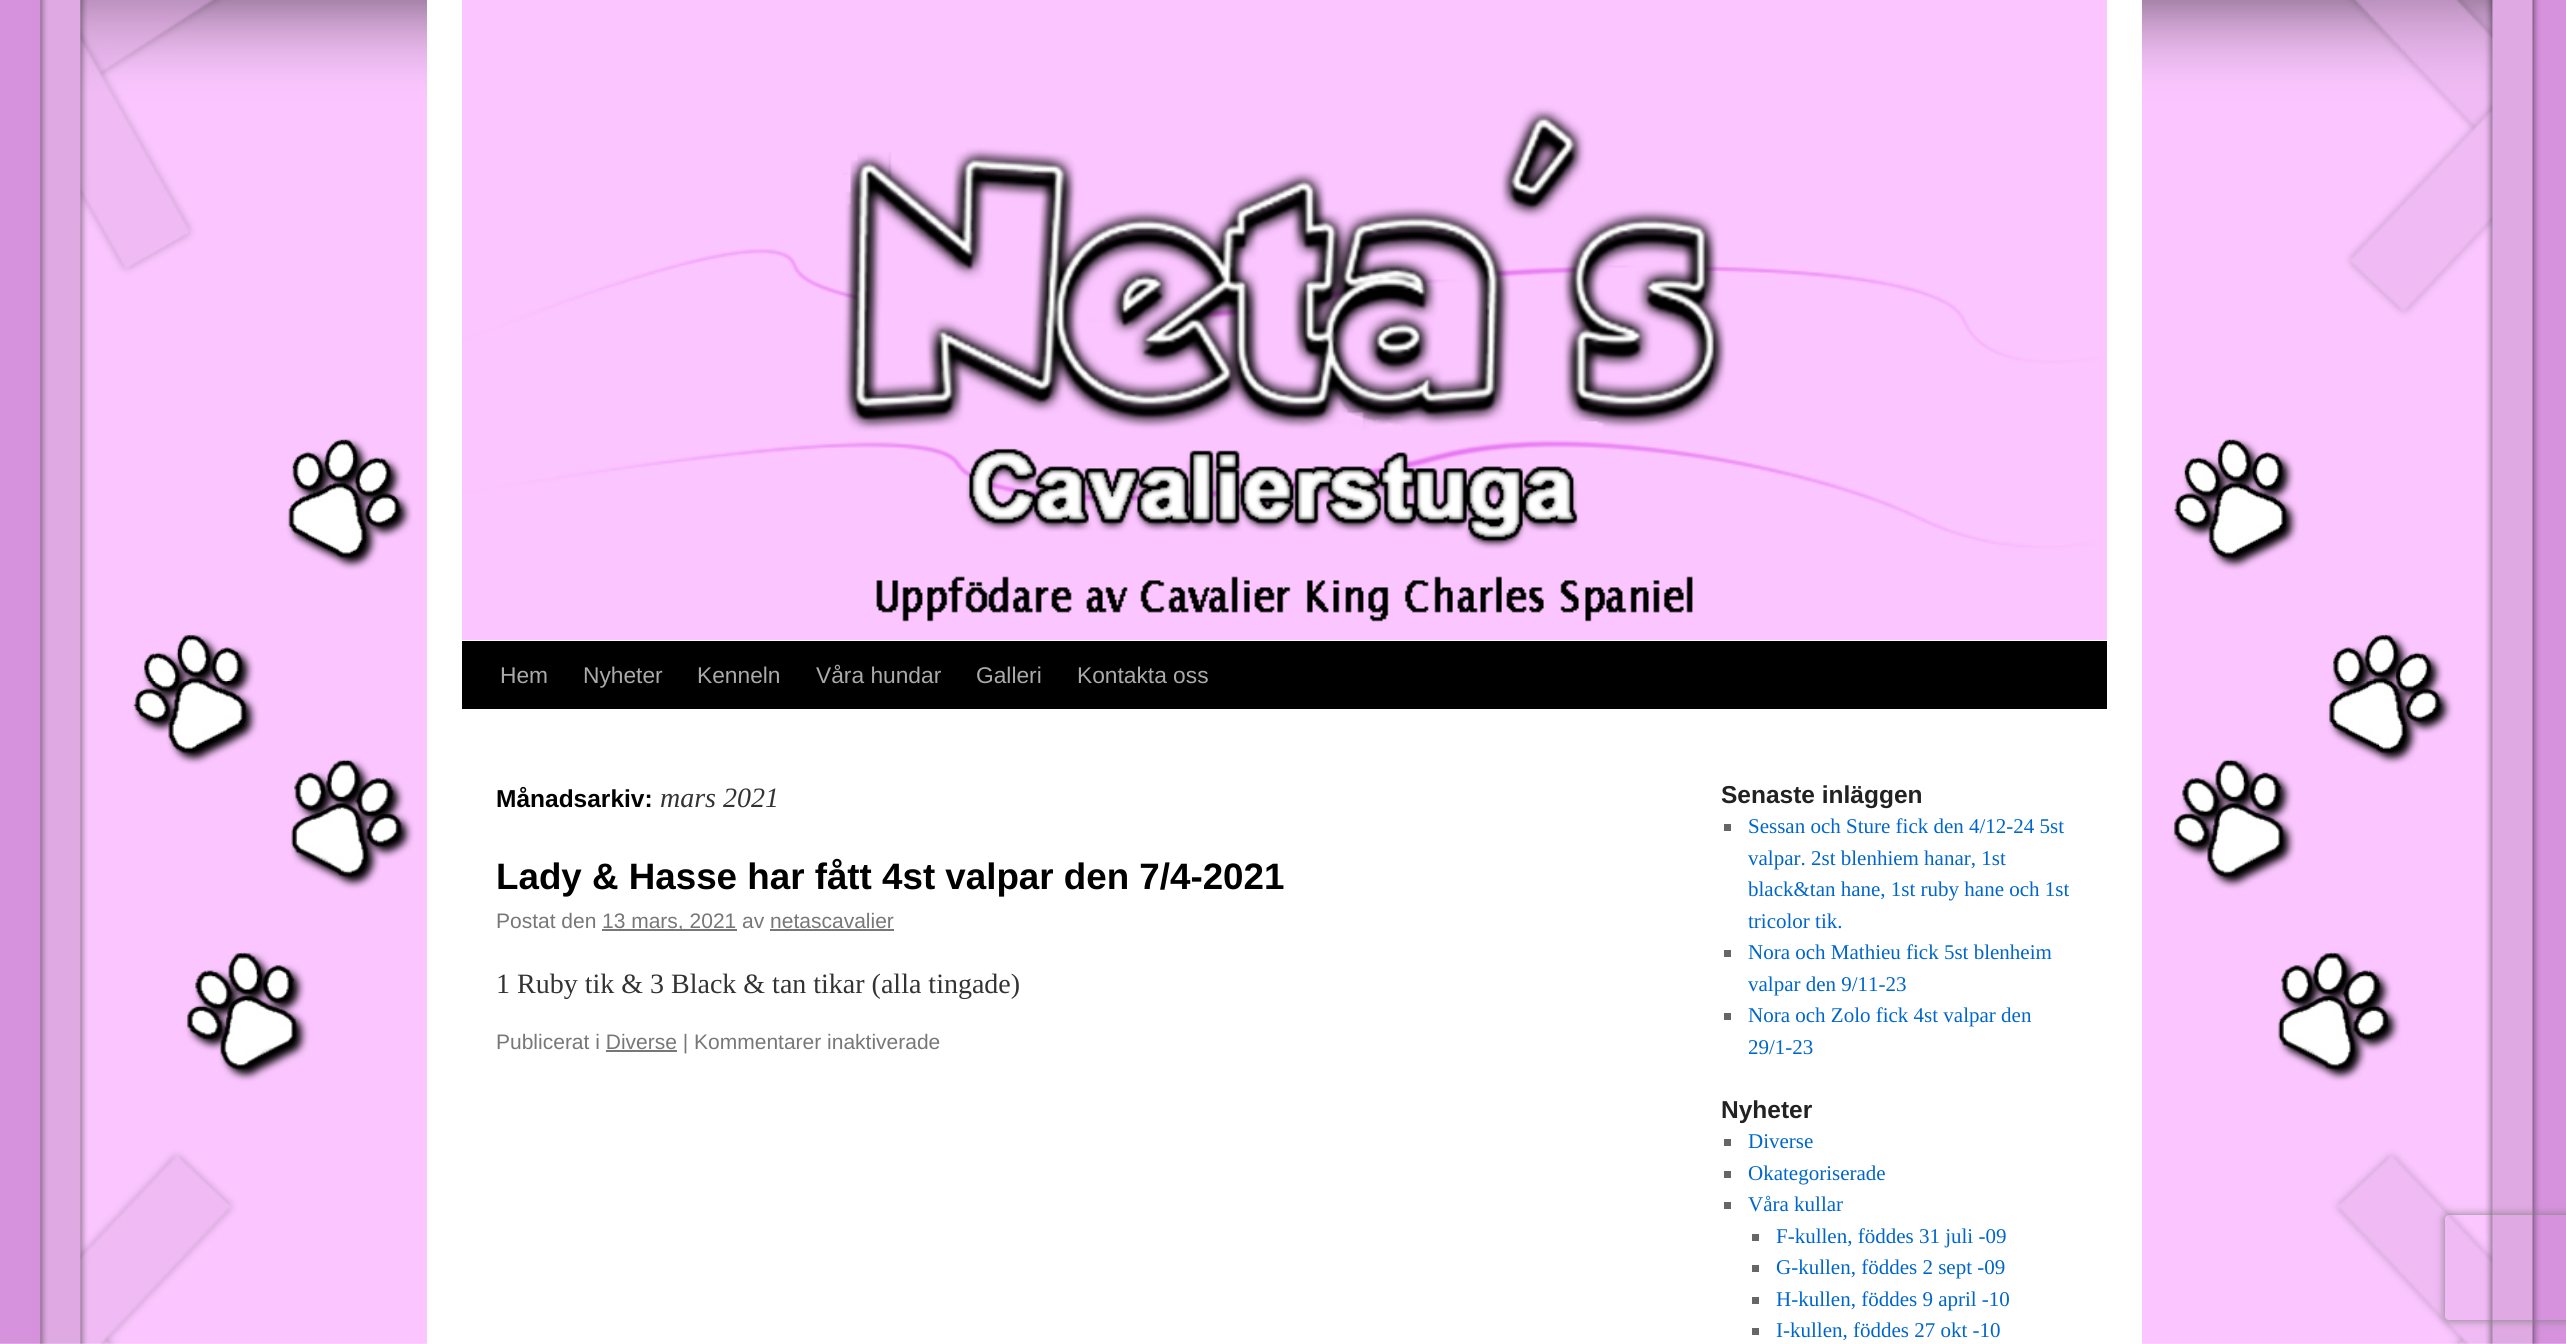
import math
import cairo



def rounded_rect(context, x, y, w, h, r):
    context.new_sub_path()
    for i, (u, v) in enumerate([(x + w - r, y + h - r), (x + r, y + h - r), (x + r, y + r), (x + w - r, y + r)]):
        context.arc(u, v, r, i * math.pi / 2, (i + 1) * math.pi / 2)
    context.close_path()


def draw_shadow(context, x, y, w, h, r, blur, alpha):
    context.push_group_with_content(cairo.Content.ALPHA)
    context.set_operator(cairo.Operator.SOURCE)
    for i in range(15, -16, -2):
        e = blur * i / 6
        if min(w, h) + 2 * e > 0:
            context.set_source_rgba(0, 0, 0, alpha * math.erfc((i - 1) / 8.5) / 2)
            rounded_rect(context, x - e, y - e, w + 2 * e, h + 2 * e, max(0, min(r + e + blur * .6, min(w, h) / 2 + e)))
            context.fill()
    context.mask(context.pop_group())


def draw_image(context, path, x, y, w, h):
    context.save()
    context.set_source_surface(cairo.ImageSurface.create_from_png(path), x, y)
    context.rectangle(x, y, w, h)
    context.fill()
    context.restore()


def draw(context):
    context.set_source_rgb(1, 1, 1)
    context.paint()
    draw_image(context, "images/1.png", 0, 0, 2566, 1344)
    context.set_source_rgb(1, 1, 1)
    context.rectangle(427, 0, 1715, 1344)
    context.fill()
    context.set_source_rgb(0, 0, 0)
    context.rectangle(462, 641, 1645, 68)
    context.fill()
    draw_image(context, "images/2.png", 462, 0, 1645, 640)
    context.set_source_rgb(119 / 255, 119 / 255, 119 / 255)
    context.rectangle(602, 929, 135, 2)
    context.fill()
    context.rectangle(770, 929, 124, 2)
    context.fill()
    context.rectangle(606, 1050, 71, 2)
    context.fill()
    context.set_source_rgb(102 / 255, 102 / 255, 102 / 255)
    context.rectangle(1724, 824, 7, 7)
    context.fill()
    context.rectangle(1724, 950, 7, 7)
    context.fill()
    context.rectangle(1724, 1013, 7, 7)
    context.fill()
    context.rectangle(1724, 1139, 7, 7)
    context.fill()
    context.rectangle(1724, 1171, 7, 7)
    context.fill()
    context.rectangle(1724, 1202, 7, 7)
    context.fill()
    context.rectangle(1752, 1234, 7, 7)
    context.fill()
    context.rectangle(1752, 1265, 7, 7)
    context.fill()
    context.rectangle(1752, 1297, 7, 7)
    context.fill()
    context.rectangle(1752, 1328, 7, 7)
    context.fill()
    context.save()
    context.set_fill_rule(cairo.FillRule.EVEN_ODD)
    context.new_path()
    context.move_to(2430, 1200)
    context.line_to(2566, 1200)
    context.line_to(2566, 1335)
    context.line_to(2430, 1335)
    context.close_path()
    context.move_to(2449, 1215)
    context.line_to(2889, 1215)
    context.curve_to(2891, 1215, 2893, 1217, 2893, 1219)
    context.line_to(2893, 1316)
    context.curve_to(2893, 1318, 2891, 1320, 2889, 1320)
    context.line_to(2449, 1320)
    context.curve_to(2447, 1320, 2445, 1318, 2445, 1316)
    context.line_to(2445, 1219)
    context.curve_to(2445, 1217, 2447, 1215, 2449, 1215)
    context.close_path()
    context.clip()
    context.set_source_rgb(128 / 255, 128 / 255, 128 / 255)
    draw_shadow(context, 2445, 1215, 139, 105, 4, 4.5, 1)
    context.restore()
    context.select_font_face("Liberation Sans")
    context.set_font_size(22.75)
    context.set_source_rgb(170 / 255, 170 / 255, 170 / 255)
    context.move_to(500, 683)
    context.show_text("Hem")
    context.move_to(583, 683)
    context.show_text("Nyheter")
    context.move_to(697, 683)
    context.show_text("Kenneln")
    context.move_to(816, 683)
    context.show_text("Våra hundar")
    context.move_to(976, 683)
    context.show_text("Galleri")
    context.move_to(1077, 683)
    context.show_text("Kontakta oss")
    context.select_font_face("Liberation Sans", cairo.FontSlant.NORMAL, cairo.FontWeight.BOLD)
    context.set_font_size(24.5)
    context.set_source_rgb(0, 0, 0)
    context.move_to(496, 807)
    context.show_text("Månadsarkiv:")
    context.select_font_face("Liberation Serif", cairo.FontSlant.ITALIC)
    context.set_font_size(28)
    context.set_source_rgb(51 / 255, 51 / 255, 51 / 255)
    context.move_to(660, 807)
    context.show_text("mars 2021")
    context.select_font_face("Liberation Sans", cairo.FontSlant.NORMAL, cairo.FontWeight.BOLD)
    context.set_font_size(36.75)
    context.set_source_rgb(0, 0, 0)
    context.move_to(496, 889)
    context.show_text("Lady & Hasse har fått 4st valpar den 7/4-2021")
    context.select_font_face("Liberation Sans")
    context.set_font_size(21)
    context.set_source_rgb(119 / 255, 119 / 255, 119 / 255)
    context.move_to(496, 928)
    context.show_text("Postat den")
    context.move_to(602, 928)
    context.show_text("13 mars, 2021 av netascavalier")
    context.select_font_face("Liberation Serif")
    context.set_font_size(28)
    context.set_source_rgb(51 / 255, 51 / 255, 51 / 255)
    context.move_to(496, 993)
    context.show_text("1 Ruby tik & 3 Black & tan tikar (alla tingade)")
    context.select_font_face("Liberation Sans")
    context.set_font_size(21)
    context.set_source_rgb(119 / 255, 119 / 255, 119 / 255)
    context.move_to(496, 1049)
    context.show_text("Publicerat i Diverse | Kommentarer inaktiverade")
    context.select_font_face("Liberation Sans", cairo.FontSlant.NORMAL, cairo.FontWeight.BOLD)
    context.set_font_size(24.5)
    context.set_source_rgb(34 / 255, 34 / 255, 34 / 255)
    context.move_to(1721, 803)
    context.show_text("Senaste inläggen")
    context.select_font_face("Liberation Serif")
    context.set_font_size(21)
    context.set_source_rgb(0, 102 / 255, 204 / 255)
    context.move_to(1748, 833)
    context.show_text("Sessan och Sture fick den 4/12-24 5st")
    context.move_to(1748, 865)
    context.show_text("valpar. 2st blenhiem hanar, 1st")
    context.move_to(1748, 896)
    context.show_text("black&tan hane, 1st ruby hane och 1st")
    context.move_to(1748, 928)
    context.show_text("tricolor tik.")
    context.move_to(1748, 959)
    context.show_text("Nora och Mathieu fick 5st blenheim")
    context.move_to(1748, 991)
    context.show_text("valpar den 9/11-23")
    context.move_to(1748, 1022)
    context.show_text("Nora och Zolo fick 4st valpar den")
    context.move_to(1748, 1054)
    context.show_text("29/1-23")
    context.select_font_face("Liberation Sans", cairo.FontSlant.NORMAL, cairo.FontWeight.BOLD)
    context.set_font_size(24.5)
    context.set_source_rgb(34 / 255, 34 / 255, 34 / 255)
    context.move_to(1721, 1118)
    context.show_text("Nyheter")
    context.select_font_face("Liberation Serif")
    context.set_font_size(21)
    context.set_source_rgb(0, 102 / 255, 204 / 255)
    context.move_to(1748, 1148)
    context.show_text("Diverse")
    context.move_to(1748, 1180)
    context.show_text("Okategoriserade")
    context.move_to(1748, 1211)
    context.show_text("Våra kullar")
    context.move_to(1776, 1243)
    context.show_text("F-kullen, föddes 31 juli -09")
    context.move_to(1776, 1274)
    context.show_text("G-kullen, föddes 2 sept -09")
    context.move_to(1776, 1306)
    context.show_text("H-kullen, föddes 9 april -10")
    context.move_to(1776, 1337)
    context.show_text("I-kullen, föddes 27 okt -10")


surface = cairo.ImageSurface(cairo.Format.RGB24, 2566, 1344)
context = cairo.Context(surface)
options = cairo.FontOptions()
options.set_hint_metrics(cairo.HintMetrics.OFF)
options.set_hint_style(cairo.HintStyle.NONE)
context.set_font_options(options)
context.set_miter_limit(4)
draw(context)
surface.write_to_png("out.png")
